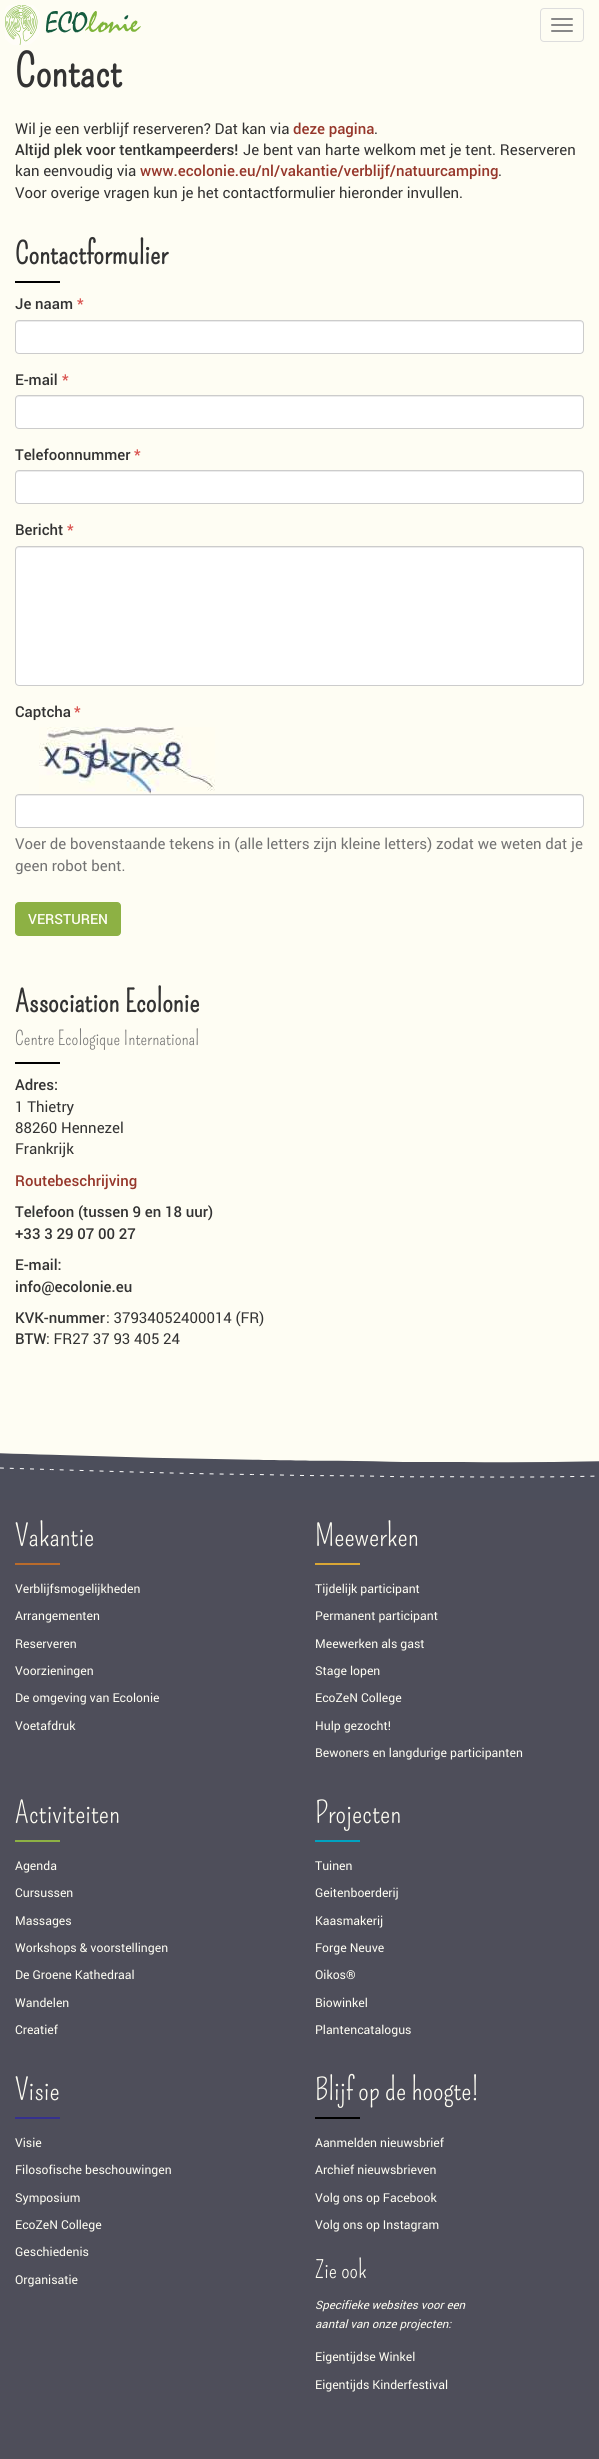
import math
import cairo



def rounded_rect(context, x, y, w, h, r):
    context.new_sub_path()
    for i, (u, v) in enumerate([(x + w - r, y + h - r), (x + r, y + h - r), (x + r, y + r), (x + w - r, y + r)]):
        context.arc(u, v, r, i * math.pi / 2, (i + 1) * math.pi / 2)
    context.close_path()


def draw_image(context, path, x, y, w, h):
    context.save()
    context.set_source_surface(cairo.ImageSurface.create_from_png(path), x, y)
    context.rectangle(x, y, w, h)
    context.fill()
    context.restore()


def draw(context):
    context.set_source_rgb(254 / 255, 253 / 255, 243 / 255)
    context.paint()
    draw_image(context, "images/1.png", 5, 5, 136, 40)
    rounded_rect(context, 540.5, 8.5, 43, 33, 3.5)
    context.set_source_rgb(221 / 255, 221 / 255, 221 / 255)
    context.set_line_width(1)
    context.stroke()
    context.set_source_rgb(136 / 255, 136 / 255, 136 / 255)
    rounded_rect(context, 551, 18, 22, 2, 1)
    context.fill()
    rounded_rect(context, 551, 24, 22, 2, 1)
    context.fill()
    rounded_rect(context, 551, 30, 22, 2, 1)
    context.fill()
    context.set_source_rgb(0, 0, 0)
    context.rectangle(15, 281, 45, 2)
    context.fill()
    context.set_source_rgb(1, 1, 1)
    rounded_rect(context, 15, 320, 569, 34, 4)
    context.fill()
    context.set_source_rgb(236 / 255, 236 / 255, 236 / 255)
    context.new_path()
    context.move_to(19, 322)
    context.line_to(580, 322)
    context.curve_to(582, 322, 583, 323, 583, 325)
    context.line_to(583, 324)
    context.curve_to(583, 322, 582, 321, 580, 321)
    context.line_to(19, 321)
    context.curve_to(17, 321, 16, 322, 16, 324)
    context.line_to(16, 325)
    context.curve_to(16, 323, 17, 322, 19, 322)
    context.close_path()
    context.fill()
    rounded_rect(context, 15.5, 320.5, 568, 33, 3.5)
    context.set_source_rgb(204 / 255, 204 / 255, 204 / 255)
    context.stroke()
    context.set_source_rgb(1, 1, 1)
    rounded_rect(context, 15, 395, 569, 34, 4)
    context.fill()
    context.set_source_rgb(236 / 255, 236 / 255, 236 / 255)
    context.new_path()
    context.move_to(19, 397)
    context.line_to(580, 397)
    context.curve_to(582, 397, 583, 398, 583, 400)
    context.line_to(583, 399)
    context.curve_to(583, 397, 582, 396, 580, 396)
    context.line_to(19, 396)
    context.curve_to(17, 396, 16, 397, 16, 399)
    context.line_to(16, 400)
    context.curve_to(16, 398, 17, 397, 19, 397)
    context.close_path()
    context.fill()
    rounded_rect(context, 15.5, 395.5, 568, 33, 3.5)
    context.set_source_rgb(204 / 255, 204 / 255, 204 / 255)
    context.stroke()
    context.set_source_rgb(1, 1, 1)
    rounded_rect(context, 15, 470, 569, 34, 4)
    context.fill()
    context.set_source_rgb(236 / 255, 236 / 255, 236 / 255)
    context.new_path()
    context.move_to(19, 472)
    context.line_to(580, 472)
    context.curve_to(582, 472, 583, 473, 583, 475)
    context.line_to(583, 474)
    context.curve_to(583, 472, 582, 471, 580, 471)
    context.line_to(19, 471)
    context.curve_to(17, 471, 16, 472, 16, 474)
    context.line_to(16, 475)
    context.curve_to(16, 473, 17, 472, 19, 472)
    context.close_path()
    context.fill()
    rounded_rect(context, 15.5, 470.5, 568, 33, 3.5)
    context.set_source_rgb(204 / 255, 204 / 255, 204 / 255)
    context.stroke()
    context.set_source_rgb(1, 1, 1)
    rounded_rect(context, 15, 546, 569, 140, 4)
    context.fill()
    context.set_source_rgb(236 / 255, 236 / 255, 236 / 255)
    context.new_path()
    context.move_to(19, 548)
    context.line_to(580, 548)
    context.curve_to(582, 548, 583, 549, 583, 551)
    context.line_to(583, 550)
    context.curve_to(583, 548, 582, 547, 580, 547)
    context.line_to(19, 547)
    context.curve_to(17, 547, 16, 548, 16, 550)
    context.line_to(16, 551)
    context.curve_to(16, 549, 17, 548, 19, 548)
    context.close_path()
    context.fill()
    rounded_rect(context, 15.5, 546.5, 568, 139, 3.5)
    context.set_source_rgb(204 / 255, 204 / 255, 204 / 255)
    context.stroke()
    draw_image(context, "images/2.png", 39, 727, 176, 67)
    context.set_source_rgb(1, 1, 1)
    rounded_rect(context, 15, 794, 569, 34, 4)
    context.fill()
    context.set_source_rgb(236 / 255, 236 / 255, 236 / 255)
    context.new_path()
    context.move_to(19, 796)
    context.line_to(580, 796)
    context.curve_to(582, 796, 583, 797, 583, 799)
    context.line_to(583, 798)
    context.curve_to(583, 796, 582, 795, 580, 795)
    context.line_to(19, 795)
    context.curve_to(17, 795, 16, 796, 16, 798)
    context.line_to(16, 799)
    context.curve_to(16, 797, 17, 796, 19, 796)
    context.close_path()
    context.fill()
    rounded_rect(context, 15.5, 794.5, 568, 33, 3.5)
    context.set_source_rgb(204 / 255, 204 / 255, 204 / 255)
    context.stroke()
    context.set_source_rgb(141 / 255, 177 / 255, 68 / 255)
    rounded_rect(context, 15.5, 902.5, 105, 33, 3.5)
    context.fill_preserve()
    context.stroke()
    context.set_source_rgb(0, 0, 0)
    context.rectangle(15, 1062, 45, 2)
    context.fill()
    draw_image(context, "images/3.png", 0, 1453, 599, 47)
    context.set_source_rgb(78 / 255, 78 / 255, 90 / 255)
    context.rectangle(0, 1500, 599, 959)
    context.fill()
    context.set_source_rgb(185 / 255, 107 / 255, 43 / 255)
    context.rectangle(15, 1563, 45, 2)
    context.fill()
    context.set_source_rgb(217 / 255, 166 / 255, 53 / 255)
    context.rectangle(315, 1563, 45, 2)
    context.fill()
    context.set_source_rgb(141 / 255, 177 / 255, 68 / 255)
    context.rectangle(15, 1840, 45, 2)
    context.fill()
    context.set_source_rgb(0, 163 / 255, 193 / 255)
    context.rectangle(315, 1840, 45, 2)
    context.fill()
    context.set_source_rgb(54 / 255, 49 / 255, 142 / 255)
    context.rectangle(15, 2117, 45, 2)
    context.fill()
    context.set_source_rgb(0, 0, 0)
    context.rectangle(315, 2117, 45, 2)
    context.fill()
    context.select_font_face("Pompiere", cairo.FontSlant.NORMAL, cairo.FontWeight.BOLD)
    context.set_font_size(45)
    context.set_source_rgb(51 / 255, 51 / 255, 51 / 255)
    context.move_to(15, 87)
    context.show_text("Contact")
    context.select_font_face("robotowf")
    context.set_font_size(15)
    context.move_to(15, 134)
    context.show_text("Wil je een verblijf reserveren? Dat kan via")
    context.select_font_face("Roboto Medium")
    context.set_source_rgb(150 / 255, 55 / 255, 43 / 255)
    context.move_to(293, 134)
    context.show_text("deze pagina")
    context.select_font_face("robotowf")
    context.set_source_rgb(51 / 255, 51 / 255, 51 / 255)
    context.move_to(374, 134)
    context.show_text(".")
    context.select_font_face("Roboto Medium")
    context.move_to(15, 155)
    context.show_text("Altijd plek voor tentkampeerders!")
    context.select_font_face("robotowf")
    context.move_to(243, 155)
    context.show_text("Je bent van harte welkom met je tent. Reserveren")
    context.move_to(15, 176)
    context.show_text("kan eenvoudig via")
    context.select_font_face("Roboto Medium")
    context.set_source_rgb(150 / 255, 55 / 255, 43 / 255)
    context.move_to(140, 176)
    context.show_text("www.ecolonie.eu/nl/vakantie/verblijf/natuurcamping")
    context.select_font_face("robotowf")
    context.set_source_rgb(51 / 255, 51 / 255, 51 / 255)
    context.move_to(498, 176)
    context.show_text(".")
    context.move_to(15, 198)
    context.show_text("Voor overige vragen kun je het contactformulier hieronder invullen.")
    context.select_font_face("Pompiere", cairo.FontSlant.NORMAL, cairo.FontWeight.BOLD)
    context.set_font_size(30)
    context.move_to(15, 264)
    context.show_text("Contactformulier")
    context.select_font_face("Roboto Medium")
    context.set_font_size(15)
    context.move_to(15, 309)
    context.show_text("Je naam")
    context.select_font_face("robotowf", cairo.FontSlant.NORMAL, cairo.FontWeight.BOLD)
    context.set_source_rgb(217 / 255, 83 / 255, 79 / 255)
    context.move_to(77, 309)
    context.show_text("*")
    context.select_font_face("Roboto Medium")
    context.set_source_rgb(51 / 255, 51 / 255, 51 / 255)
    context.move_to(15, 385)
    context.show_text("E-mail")
    context.select_font_face("robotowf", cairo.FontSlant.NORMAL, cairo.FontWeight.BOLD)
    context.set_source_rgb(217 / 255, 83 / 255, 79 / 255)
    context.move_to(62, 385)
    context.show_text("*")
    context.select_font_face("Roboto Medium")
    context.set_source_rgb(51 / 255, 51 / 255, 51 / 255)
    context.move_to(15, 460)
    context.show_text("Telefoonnummer")
    context.select_font_face("robotowf", cairo.FontSlant.NORMAL, cairo.FontWeight.BOLD)
    context.set_source_rgb(217 / 255, 83 / 255, 79 / 255)
    context.move_to(134, 460)
    context.show_text("*")
    context.select_font_face("Roboto Medium")
    context.set_source_rgb(51 / 255, 51 / 255, 51 / 255)
    context.move_to(15, 535)
    context.show_text("Bericht")
    context.select_font_face("robotowf", cairo.FontSlant.NORMAL, cairo.FontWeight.BOLD)
    context.set_source_rgb(217 / 255, 83 / 255, 79 / 255)
    context.move_to(67, 535)
    context.show_text("*")
    context.select_font_face("Roboto Medium")
    context.set_source_rgb(51 / 255, 51 / 255, 51 / 255)
    context.move_to(15, 717)
    context.show_text("Captcha")
    context.select_font_face("robotowf", cairo.FontSlant.NORMAL, cairo.FontWeight.BOLD)
    context.set_source_rgb(217 / 255, 83 / 255, 79 / 255)
    context.move_to(74, 717)
    context.show_text("*")
    context.select_font_face("robotowf")
    context.set_source_rgb(115 / 255, 115 / 255, 115 / 255)
    context.move_to(15, 849)
    context.show_text("Voer de bovenstaande tekens in (alle letters zijn kleine letters) zodat we weten dat je")
    context.move_to(15, 871)
    context.show_text("geen robot bent.")
    context.select_font_face("Roboto Medium")
    context.set_font_size(14)
    context.set_source_rgb(254 / 255, 253 / 255, 243 / 255)
    context.move_to(28, 924)
    context.show_text("VERSTUREN")
    context.select_font_face("Pompiere", cairo.FontSlant.NORMAL, cairo.FontWeight.BOLD)
    context.set_font_size(30)
    context.set_source_rgb(51 / 255, 51 / 255, 51 / 255)
    context.move_to(15, 1012)
    context.show_text("Association Ecolonie")
    context.select_font_face("Pompiere")
    context.set_font_size(19.5)
    context.set_source_rgb(115 / 255, 115 / 255, 115 / 255)
    context.move_to(15, 1045)
    context.show_text("Centre Ecologique International")
    context.select_font_face("Roboto Medium")
    context.set_font_size(15)
    context.set_source_rgb(51 / 255, 51 / 255, 51 / 255)
    context.move_to(15, 1090)
    context.show_text("Adres:")
    context.select_font_face("robotowf")
    context.move_to(15, 1112)
    context.show_text("1 Thietry")
    context.move_to(15, 1133)
    context.show_text("88260 Hennezel")
    context.move_to(15, 1154)
    context.show_text("Frankrijk")
    context.select_font_face("Roboto Medium")
    context.set_source_rgb(150 / 255, 55 / 255, 43 / 255)
    context.move_to(15, 1186)
    context.show_text("Routebeschrijving")
    context.set_source_rgb(51 / 255, 51 / 255, 51 / 255)
    context.move_to(15, 1217)
    context.show_text("Telefoon (tussen 9 en 18 uur)")
    context.move_to(15, 1239)
    context.show_text("+33 3 29 07 00 27")
    context.move_to(15, 1270)
    context.show_text("E-mail:")
    context.move_to(15, 1292)
    context.show_text("info@ecolonie.eu")
    context.move_to(15, 1323)
    context.show_text("KVK-nummer")
    context.select_font_face("robotowf")
    context.move_to(106, 1323)
    context.show_text(": 37934052400014 (FR)")
    context.select_font_face("Roboto Medium")
    context.move_to(15, 1344)
    context.show_text("BTW")
    context.select_font_face("robotowf")
    context.move_to(46, 1344)
    context.show_text(": FR27 37 93 405 24")
    context.select_font_face("Pompiere")
    context.set_font_size(30)
    context.set_source_rgb(254 / 255, 253 / 255, 243 / 255)
    context.move_to(15, 1546)
    context.show_text("Vakantie")
    context.select_font_face("robotowf")
    context.set_font_size(12.2)
    context.move_to(15, 1593)
    context.show_text("Verblijfsmogelijkheden")
    context.move_to(15, 1620)
    context.show_text("Arrangementen")
    context.move_to(15, 1648)
    context.show_text("Reserveren")
    context.move_to(15, 1675)
    context.show_text("Voorzieningen")
    context.move_to(15, 1702)
    context.show_text("De omgeving van Ecolonie")
    context.move_to(15, 1730)
    context.show_text("Voetafdruk")
    context.select_font_face("Pompiere")
    context.set_font_size(30)
    context.move_to(315, 1546)
    context.show_text("Meewerken")
    context.select_font_face("robotowf")
    context.set_font_size(12.2)
    context.move_to(315, 1593)
    context.show_text("Tijdelijk participant")
    context.move_to(315, 1620)
    context.show_text("Permanent participant")
    context.move_to(315, 1648)
    context.show_text("Meewerken als gast")
    context.move_to(315, 1675)
    context.show_text("Stage lopen")
    context.move_to(315, 1702)
    context.show_text("EcoZeN College")
    context.move_to(315, 1730)
    context.show_text("Hulp gezocht!")
    context.move_to(315, 1757)
    context.show_text("Bewoners en langdurige participanten")
    context.select_font_face("Pompiere")
    context.set_font_size(30)
    context.move_to(15, 1823)
    context.show_text("Activiteiten")
    context.select_font_face("robotowf")
    context.set_font_size(12.2)
    context.move_to(15, 1870)
    context.show_text("Agenda")
    context.move_to(15, 1897)
    context.show_text("Cursussen")
    context.move_to(15, 1925)
    context.show_text("Massages")
    context.move_to(15, 1952)
    context.show_text("Workshops & voorstellingen")
    context.move_to(15, 1979)
    context.show_text("De Groene Kathedraal")
    context.move_to(15, 2007)
    context.show_text("Wandelen")
    context.move_to(15, 2034)
    context.show_text("Creatief")
    context.select_font_face("Pompiere")
    context.set_font_size(30)
    context.move_to(315, 1823)
    context.show_text("Projecten")
    context.select_font_face("robotowf")
    context.set_font_size(12.2)
    context.move_to(315, 1870)
    context.show_text("Tuinen")
    context.move_to(315, 1897)
    context.show_text("Geitenboerderij")
    context.move_to(315, 1925)
    context.show_text("Kaasmakerij")
    context.move_to(315, 1952)
    context.show_text("Forge Neuve")
    context.move_to(315, 1979)
    context.show_text("Oikos®")
    context.move_to(315, 2007)
    context.show_text("Biowinkel")
    context.move_to(315, 2034)
    context.show_text("Plantencatalogus")
    context.select_font_face("Pompiere")
    context.set_font_size(30)
    context.move_to(15, 2100)
    context.show_text("Visie")
    context.select_font_face("robotowf")
    context.set_font_size(12.2)
    context.move_to(15, 2147)
    context.show_text("Visie")
    context.move_to(15, 2174)
    context.show_text("Filosofische beschouwingen")
    context.move_to(15, 2202)
    context.show_text("Symposium")
    context.move_to(15, 2229)
    context.show_text("EcoZeN College")
    context.move_to(15, 2256)
    context.show_text("Geschiedenis")
    context.move_to(15, 2284)
    context.show_text("Organisatie")
    context.select_font_face("Pompiere")
    context.set_font_size(30)
    context.move_to(315, 2100)
    context.show_text("Blijf op de hoogte!")
    context.select_font_face("robotowf")
    context.set_font_size(12.2)
    context.move_to(315, 2147)
    context.show_text("Aanmelden nieuwsbrief")
    context.move_to(315, 2174)
    context.show_text("Archief nieuwsbrieven")
    context.move_to(315, 2202)
    context.show_text("Volg ons op Facebook")
    context.move_to(315, 2229)
    context.show_text("Volg ons op Instagram")
    context.select_font_face("Pompiere")
    context.set_font_size(24)
    context.move_to(315, 2278)
    context.show_text("Zie ook")
    context.select_font_face("robotowf", cairo.FontSlant.ITALIC)
    context.set_font_size(11.5)
    context.move_to(315, 2309)
    context.show_text("Specifieke websites voor een")
    context.move_to(315, 2328)
    context.show_text("aantal van onze projecten:")
    context.select_font_face("robotowf")
    context.set_font_size(12.2)
    context.move_to(315, 2361)
    context.show_text("Eigentijdse Winkel")
    context.move_to(315, 2389)
    context.show_text("Eigentijds Kinderfestival")


surface = cairo.ImageSurface(cairo.Format.RGB24, 599, 2459)
context = cairo.Context(surface)
options = cairo.FontOptions()
options.set_hint_metrics(cairo.HintMetrics.OFF)
options.set_hint_style(cairo.HintStyle.NONE)
context.set_font_options(options)
context.set_miter_limit(4)
draw(context)
surface.write_to_png("out.png")
